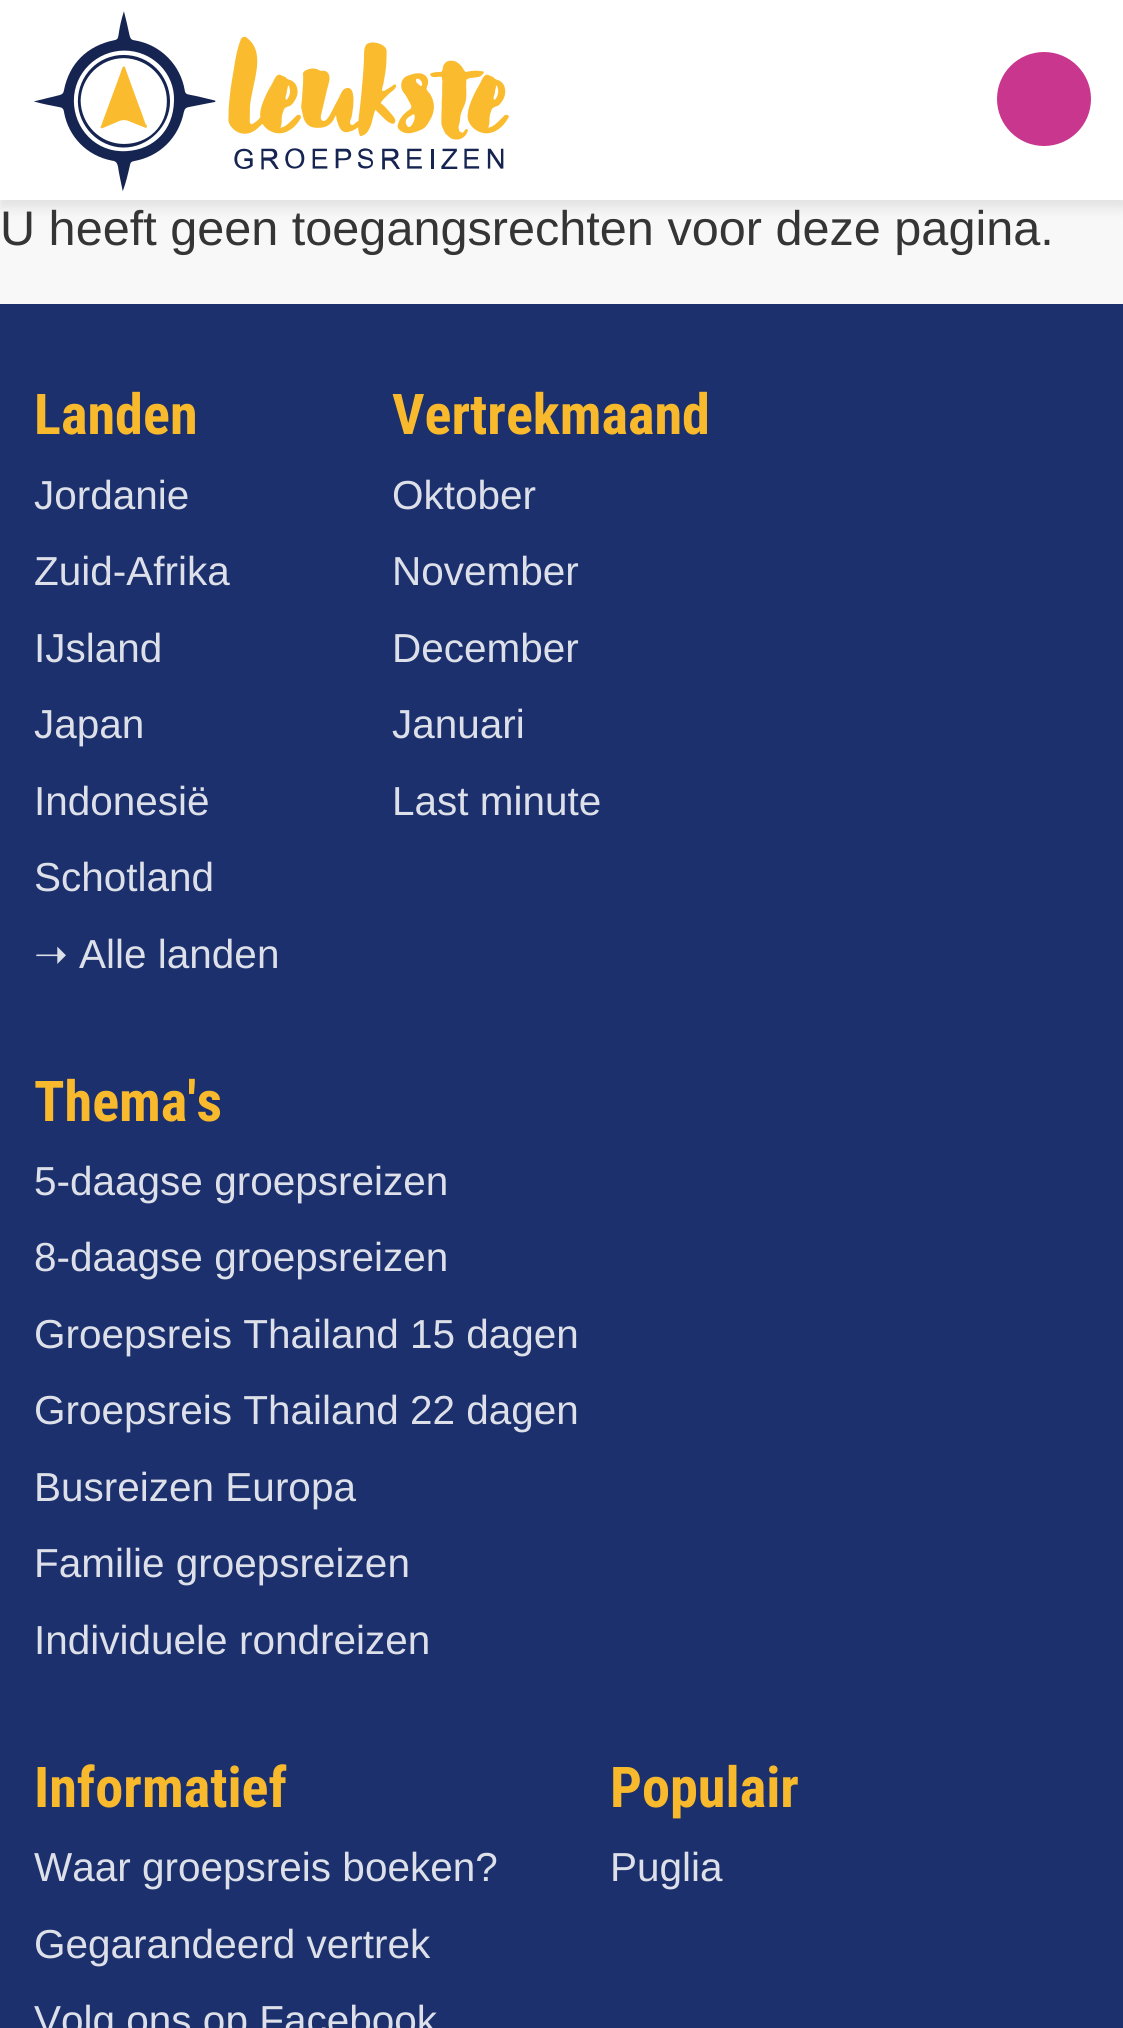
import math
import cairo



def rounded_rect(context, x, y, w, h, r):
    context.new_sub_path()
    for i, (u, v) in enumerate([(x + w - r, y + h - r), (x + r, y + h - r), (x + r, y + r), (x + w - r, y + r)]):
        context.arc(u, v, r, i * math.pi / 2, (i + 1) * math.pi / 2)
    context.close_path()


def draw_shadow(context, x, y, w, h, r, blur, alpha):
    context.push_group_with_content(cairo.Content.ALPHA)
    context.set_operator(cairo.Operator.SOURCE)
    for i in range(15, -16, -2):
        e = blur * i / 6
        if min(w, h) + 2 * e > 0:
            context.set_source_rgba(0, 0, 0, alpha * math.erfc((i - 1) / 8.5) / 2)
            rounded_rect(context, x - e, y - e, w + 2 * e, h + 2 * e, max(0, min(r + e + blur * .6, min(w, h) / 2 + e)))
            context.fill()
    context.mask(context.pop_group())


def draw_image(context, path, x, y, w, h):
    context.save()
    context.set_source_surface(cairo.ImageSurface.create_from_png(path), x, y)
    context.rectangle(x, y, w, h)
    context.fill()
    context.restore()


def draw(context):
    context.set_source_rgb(248 / 255, 248 / 255, 248 / 255)
    context.paint()
    context.set_source_rgb(0, 0, 0)
    draw_shadow(context, 0, 7, 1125, 200, 0, 7, 0.1)
    context.set_source_rgb(1, 1, 1)
    context.rectangle(0, 0, 1123, 200)
    context.fill()
    draw_image(context, "images/1.png", 34, 11, 475, 180)
    context.set_source_rgb(201 / 255, 54 / 255, 142 / 255)
    context.arc(1044, 99, 47, 0, 2 * math.pi)
    context.fill()
    context.set_source_rgb(27 / 255, 48 / 255, 109 / 255)
    context.rectangle(0, 304, 1123, 1724)
    context.fill()
    context.select_font_face("Liberation Sans")
    context.set_font_size(48.6)
    context.set_source_rgb(53 / 255, 53 / 255, 53 / 255)
    context.move_to(0, 245)
    context.show_text("U heeft geen toegangsrechten voor deze pagina.")
    context.select_font_face("Roboto Condensed", cairo.FontSlant.NORMAL, cairo.FontWeight.BOLD)
    context.set_font_size(56.25)
    context.set_source_rgb(248 / 255, 186 / 255, 44 / 255)
    context.move_to(34, 434)
    context.show_text("Landen")
    context.select_font_face("Liberation Sans")
    context.set_font_size(40.5)
    context.set_source_rgb(221 / 255, 224 / 255, 233 / 255)
    context.move_to(34, 509)
    context.show_text("Jordanie")
    context.move_to(34, 585)
    context.show_text("Zuid-Afrika")
    context.move_to(34, 662)
    context.show_text("IJsland")
    context.move_to(34, 738)
    context.show_text("Japan")
    context.move_to(34, 815)
    context.show_text("Indonesië")
    context.move_to(34, 891)
    context.show_text("Schotland")
    context.select_font_face("DejaVu Sans")
    context.move_to(34, 968)
    context.show_text("➝")
    context.select_font_face("Liberation Sans")
    context.move_to(79, 968)
    context.show_text("Alle landen")
    context.select_font_face("Roboto Condensed", cairo.FontSlant.NORMAL, cairo.FontWeight.BOLD)
    context.set_font_size(56.25)
    context.set_source_rgb(248 / 255, 186 / 255, 44 / 255)
    context.move_to(392, 434)
    context.show_text("Vertrekmaand")
    context.select_font_face("Liberation Sans")
    context.set_font_size(40.5)
    context.set_source_rgb(221 / 255, 224 / 255, 233 / 255)
    context.move_to(392, 509)
    context.show_text("Oktober")
    context.move_to(392, 585)
    context.show_text("November")
    context.move_to(392, 662)
    context.show_text("December")
    context.move_to(392, 738)
    context.show_text("Januari")
    context.move_to(392, 815)
    context.show_text("Last minute")
    context.select_font_face("Roboto Condensed", cairo.FontSlant.NORMAL, cairo.FontWeight.BOLD)
    context.set_font_size(56.25)
    context.set_source_rgb(248 / 255, 186 / 255, 44 / 255)
    context.move_to(34, 1121)
    context.show_text("Thema's")
    context.select_font_face("Liberation Sans")
    context.set_font_size(40.5)
    context.set_source_rgb(221 / 255, 224 / 255, 233 / 255)
    context.move_to(34, 1195)
    context.show_text("5-daagse groepsreizen")
    context.move_to(34, 1271)
    context.show_text("8-daagse groepsreizen")
    context.move_to(34, 1348)
    context.show_text("Groepsreis Thailand 15 dagen")
    context.move_to(34, 1424)
    context.show_text("Groepsreis Thailand 22 dagen")
    context.move_to(34, 1501)
    context.show_text("Busreizen Europa")
    context.move_to(34, 1577)
    context.show_text("Familie groepsreizen")
    context.move_to(34, 1654)
    context.show_text("Individuele rondreizen")
    context.select_font_face("Roboto Condensed", cairo.FontSlant.NORMAL, cairo.FontWeight.BOLD)
    context.set_font_size(56.25)
    context.set_source_rgb(248 / 255, 186 / 255, 44 / 255)
    context.move_to(34, 1807)
    context.show_text("Informatief")
    context.select_font_face("Liberation Sans")
    context.set_font_size(40.5)
    context.set_source_rgb(221 / 255, 224 / 255, 233 / 255)
    context.move_to(34, 1881)
    context.show_text("Waar groepsreis boeken?")
    context.move_to(34, 1958)
    context.show_text("Gegarandeerd vertrek")
    context.move_to(34, 2034)
    context.show_text("Volg ons op Facebook")
    context.select_font_face("Roboto Condensed", cairo.FontSlant.NORMAL, cairo.FontWeight.BOLD)
    context.set_font_size(56.25)
    context.set_source_rgb(248 / 255, 186 / 255, 44 / 255)
    context.move_to(610, 1807)
    context.show_text("Populair")
    context.select_font_face("Liberation Sans")
    context.set_font_size(40.5)
    context.set_source_rgb(221 / 255, 224 / 255, 233 / 255)
    context.move_to(610, 1881)
    context.show_text("Puglia")


surface = cairo.ImageSurface(cairo.Format.RGB24, 1123, 2028)
context = cairo.Context(surface)
options = cairo.FontOptions()
options.set_hint_metrics(cairo.HintMetrics.OFF)
options.set_hint_style(cairo.HintStyle.NONE)
context.set_font_options(options)
context.set_miter_limit(4)
draw(context)
surface.write_to_png("out.png")
